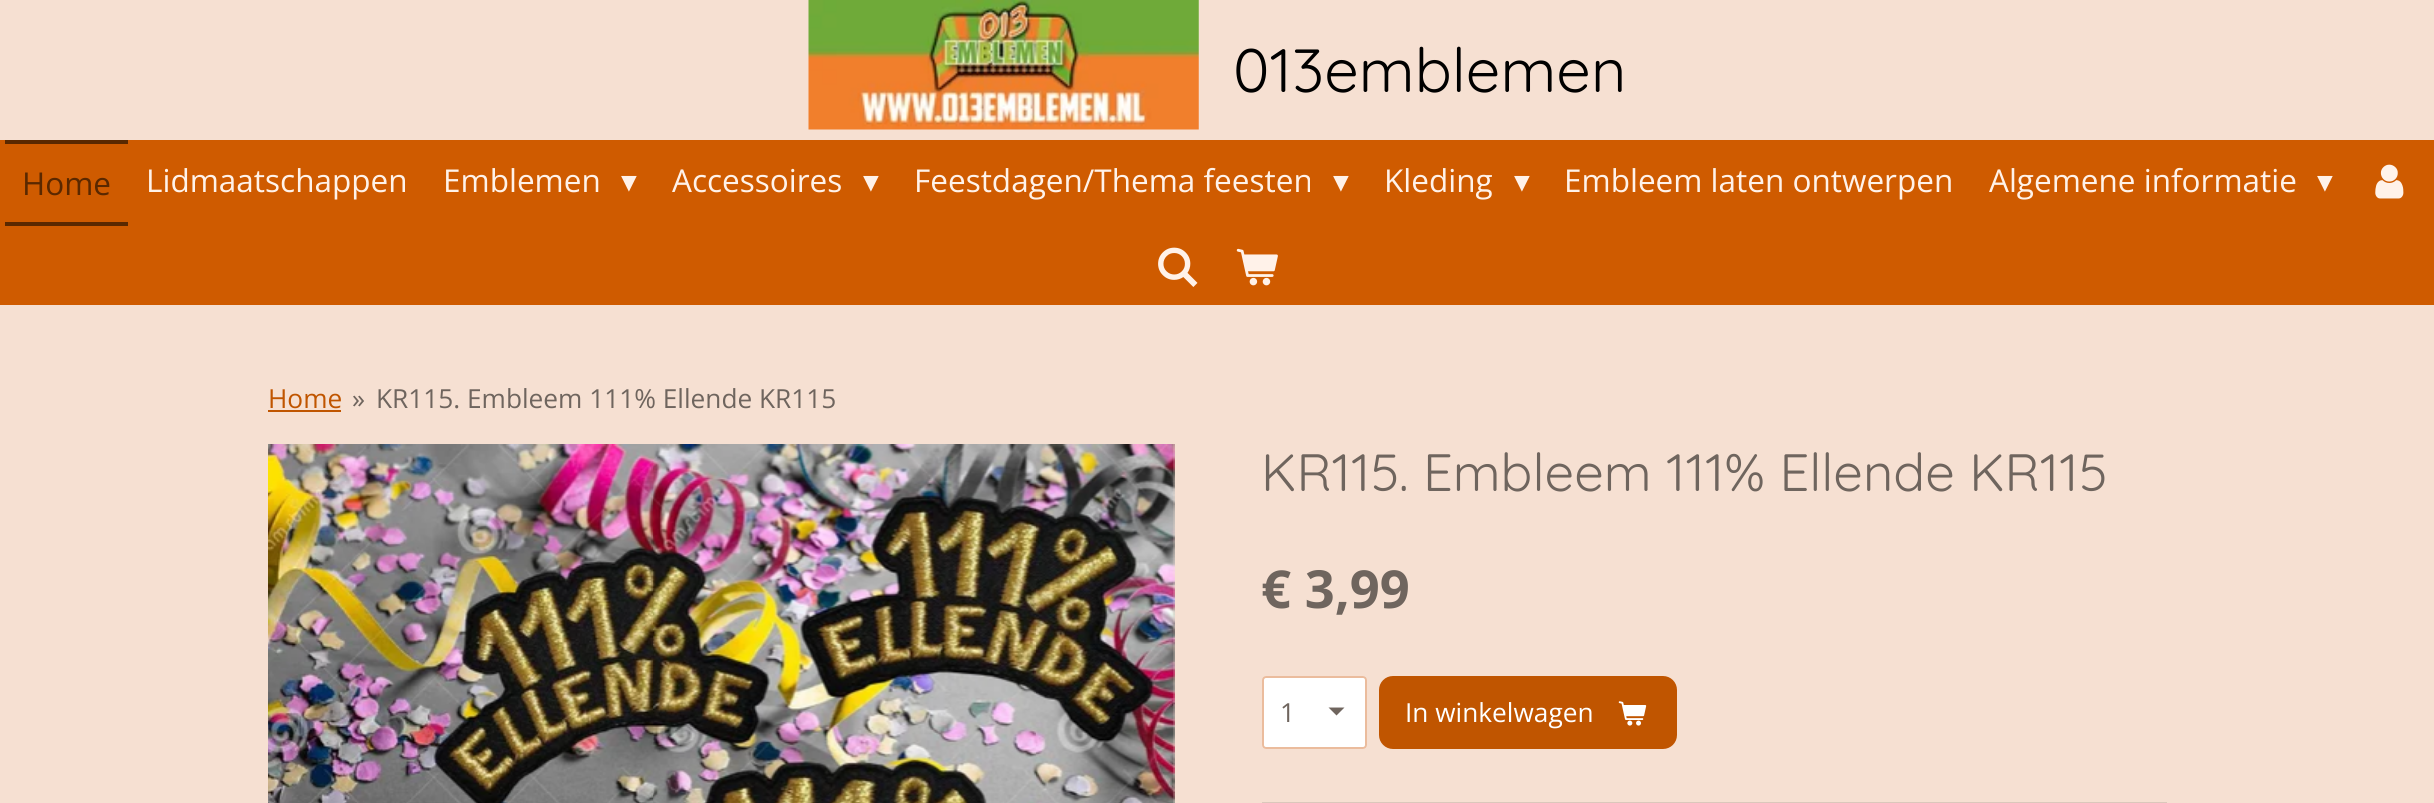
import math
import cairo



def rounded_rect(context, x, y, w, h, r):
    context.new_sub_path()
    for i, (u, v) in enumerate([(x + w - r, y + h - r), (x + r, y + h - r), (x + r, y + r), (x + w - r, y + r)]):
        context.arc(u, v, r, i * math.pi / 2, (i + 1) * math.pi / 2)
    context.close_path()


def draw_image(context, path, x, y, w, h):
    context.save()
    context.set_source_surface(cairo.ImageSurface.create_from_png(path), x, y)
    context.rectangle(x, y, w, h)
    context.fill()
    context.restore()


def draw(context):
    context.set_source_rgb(246 / 255, 224 / 255, 210 / 255)
    context.paint()
    draw_image(context, "images/1.png", 808, 0, 391, 130)
    context.set_source_rgb(207 / 255, 91 / 255, 0)
    context.rectangle(0, 140, 2434, 165)
    context.fill()
    context.set_source_rgb(90 / 255, 40 / 255, 0)
    context.rectangle(5, 140, 123, 4)
    context.fill()
    context.rectangle(5, 222, 123, 4)
    context.fill()
    draw_image(context, "images/2.png", 2375, 164, 29, 35)
    draw_image(context, "images/3.png", 1158, 247, 40, 40)
    draw_image(context, "images/4.png", 1236, 248, 42, 38)
    context.set_source_rgb(192 / 255, 85 / 255, 0)
    context.rectangle(268, 410, 73, 2)
    context.fill()
    draw_image(context, "images/5.png", 268, 444, 907, 359)
    context.set_source_rgb(1, 1, 1)
    rounded_rect(context, 1262, 676, 105, 73, 4)
    context.fill()
    context.set_source_rgb(111 / 255, 101 / 255, 94 / 255)
    context.new_path()
    context.move_to(1336.5, 715.5)
    context.line_to(1328.5, 707.5)
    context.line_to(1344.5, 707.5)
    context.close_path()
    context.fill()
    rounded_rect(context, 1263, 677, 103, 71, 3)
    context.set_source_rgba(216 / 255, 122 / 255, 61 / 255, 0.5)
    context.stroke()
    context.set_source_rgb(192 / 255, 85 / 255, 0)
    rounded_rect(context, 1379, 676, 298, 73, 14)
    context.fill()
    draw_image(context, "images/6.png", 1618, 701, 29, 25)
    context.set_source_rgb(219 / 255, 199 / 255, 187 / 255)
    context.rectangle(1262, 802, 905, 1)
    context.fill()
    context.select_font_face("Quicksand")
    context.set_font_size(61.25)
    context.set_source_rgb(0, 0, 0)
    context.move_to(1233, 92)
    context.show_text("013emblemen")
    context.select_font_face("Open Sans")
    context.set_font_size(31.5)
    context.set_source_rgb(90 / 255, 40 / 255, 0)
    context.move_to(22, 195)
    context.show_text("Home")
    context.set_source_rgb(1, 242 / 255, 233 / 255)
    context.move_to(146, 192)
    context.show_text("Lidmaatschappen")
    context.move_to(443, 192)
    context.show_text("Emblemen")
    context.select_font_face("DejaVu Sans")
    context.move_to(621, 192)
    context.show_text("▾")
    context.select_font_face("Open Sans")
    context.move_to(672, 192)
    context.show_text("Accessoires")
    context.select_font_face("DejaVu Sans")
    context.move_to(863, 192)
    context.show_text("▾")
    context.select_font_face("Open Sans")
    context.move_to(914, 192)
    context.show_text("Feestdagen/Thema feesten")
    context.select_font_face("DejaVu Sans")
    context.move_to(1333, 192)
    context.show_text("▾")
    context.select_font_face("Open Sans")
    context.move_to(1384, 192)
    context.show_text("Kleding")
    context.select_font_face("DejaVu Sans")
    context.move_to(1514, 192)
    context.show_text("▾")
    context.select_font_face("Open Sans")
    context.move_to(1564, 192)
    context.show_text("Embleem laten ontwerpen")
    context.move_to(1989, 192)
    context.show_text("Algemene informatie")
    context.select_font_face("DejaVu Sans")
    context.move_to(2317, 192)
    context.show_text("▾")
    context.select_font_face("Open Sans")
    context.set_font_size(26.25)
    context.set_source_rgb(192 / 255, 85 / 255, 0)
    context.move_to(268, 408)
    context.show_text("Home")
    context.set_source_rgb(111 / 255, 101 / 255, 94 / 255)
    context.move_to(352, 408)
    context.show_text("»")
    context.move_to(376, 408)
    context.show_text("KR115. Embleem 111% Ellende KR115")
    context.select_font_face("Quicksand")
    context.set_font_size(52.5)
    context.move_to(1261, 491)
    context.show_text("KR115. Embleem 111% Ellende KR115")
    context.select_font_face("Open Sans", cairo.FontSlant.NORMAL, cairo.FontWeight.BOLD)
    context.move_to(1261, 608)
    context.show_text("€ 3,99")
    context.select_font_face("Open Sans")
    context.set_font_size(26.25)
    context.move_to(1280, 722)
    context.show_text("1")
    context.set_source_rgb(1, 1, 1)
    context.move_to(1405, 722)
    context.show_text("In winkelwagen")


surface = cairo.ImageSurface(cairo.Format.RGB24, 2434, 803)
context = cairo.Context(surface)
options = cairo.FontOptions()
options.set_hint_metrics(cairo.HintMetrics.OFF)
options.set_hint_style(cairo.HintStyle.NONE)
context.set_font_options(options)
context.set_miter_limit(4)
draw(context)
surface.write_to_png("out.png")
